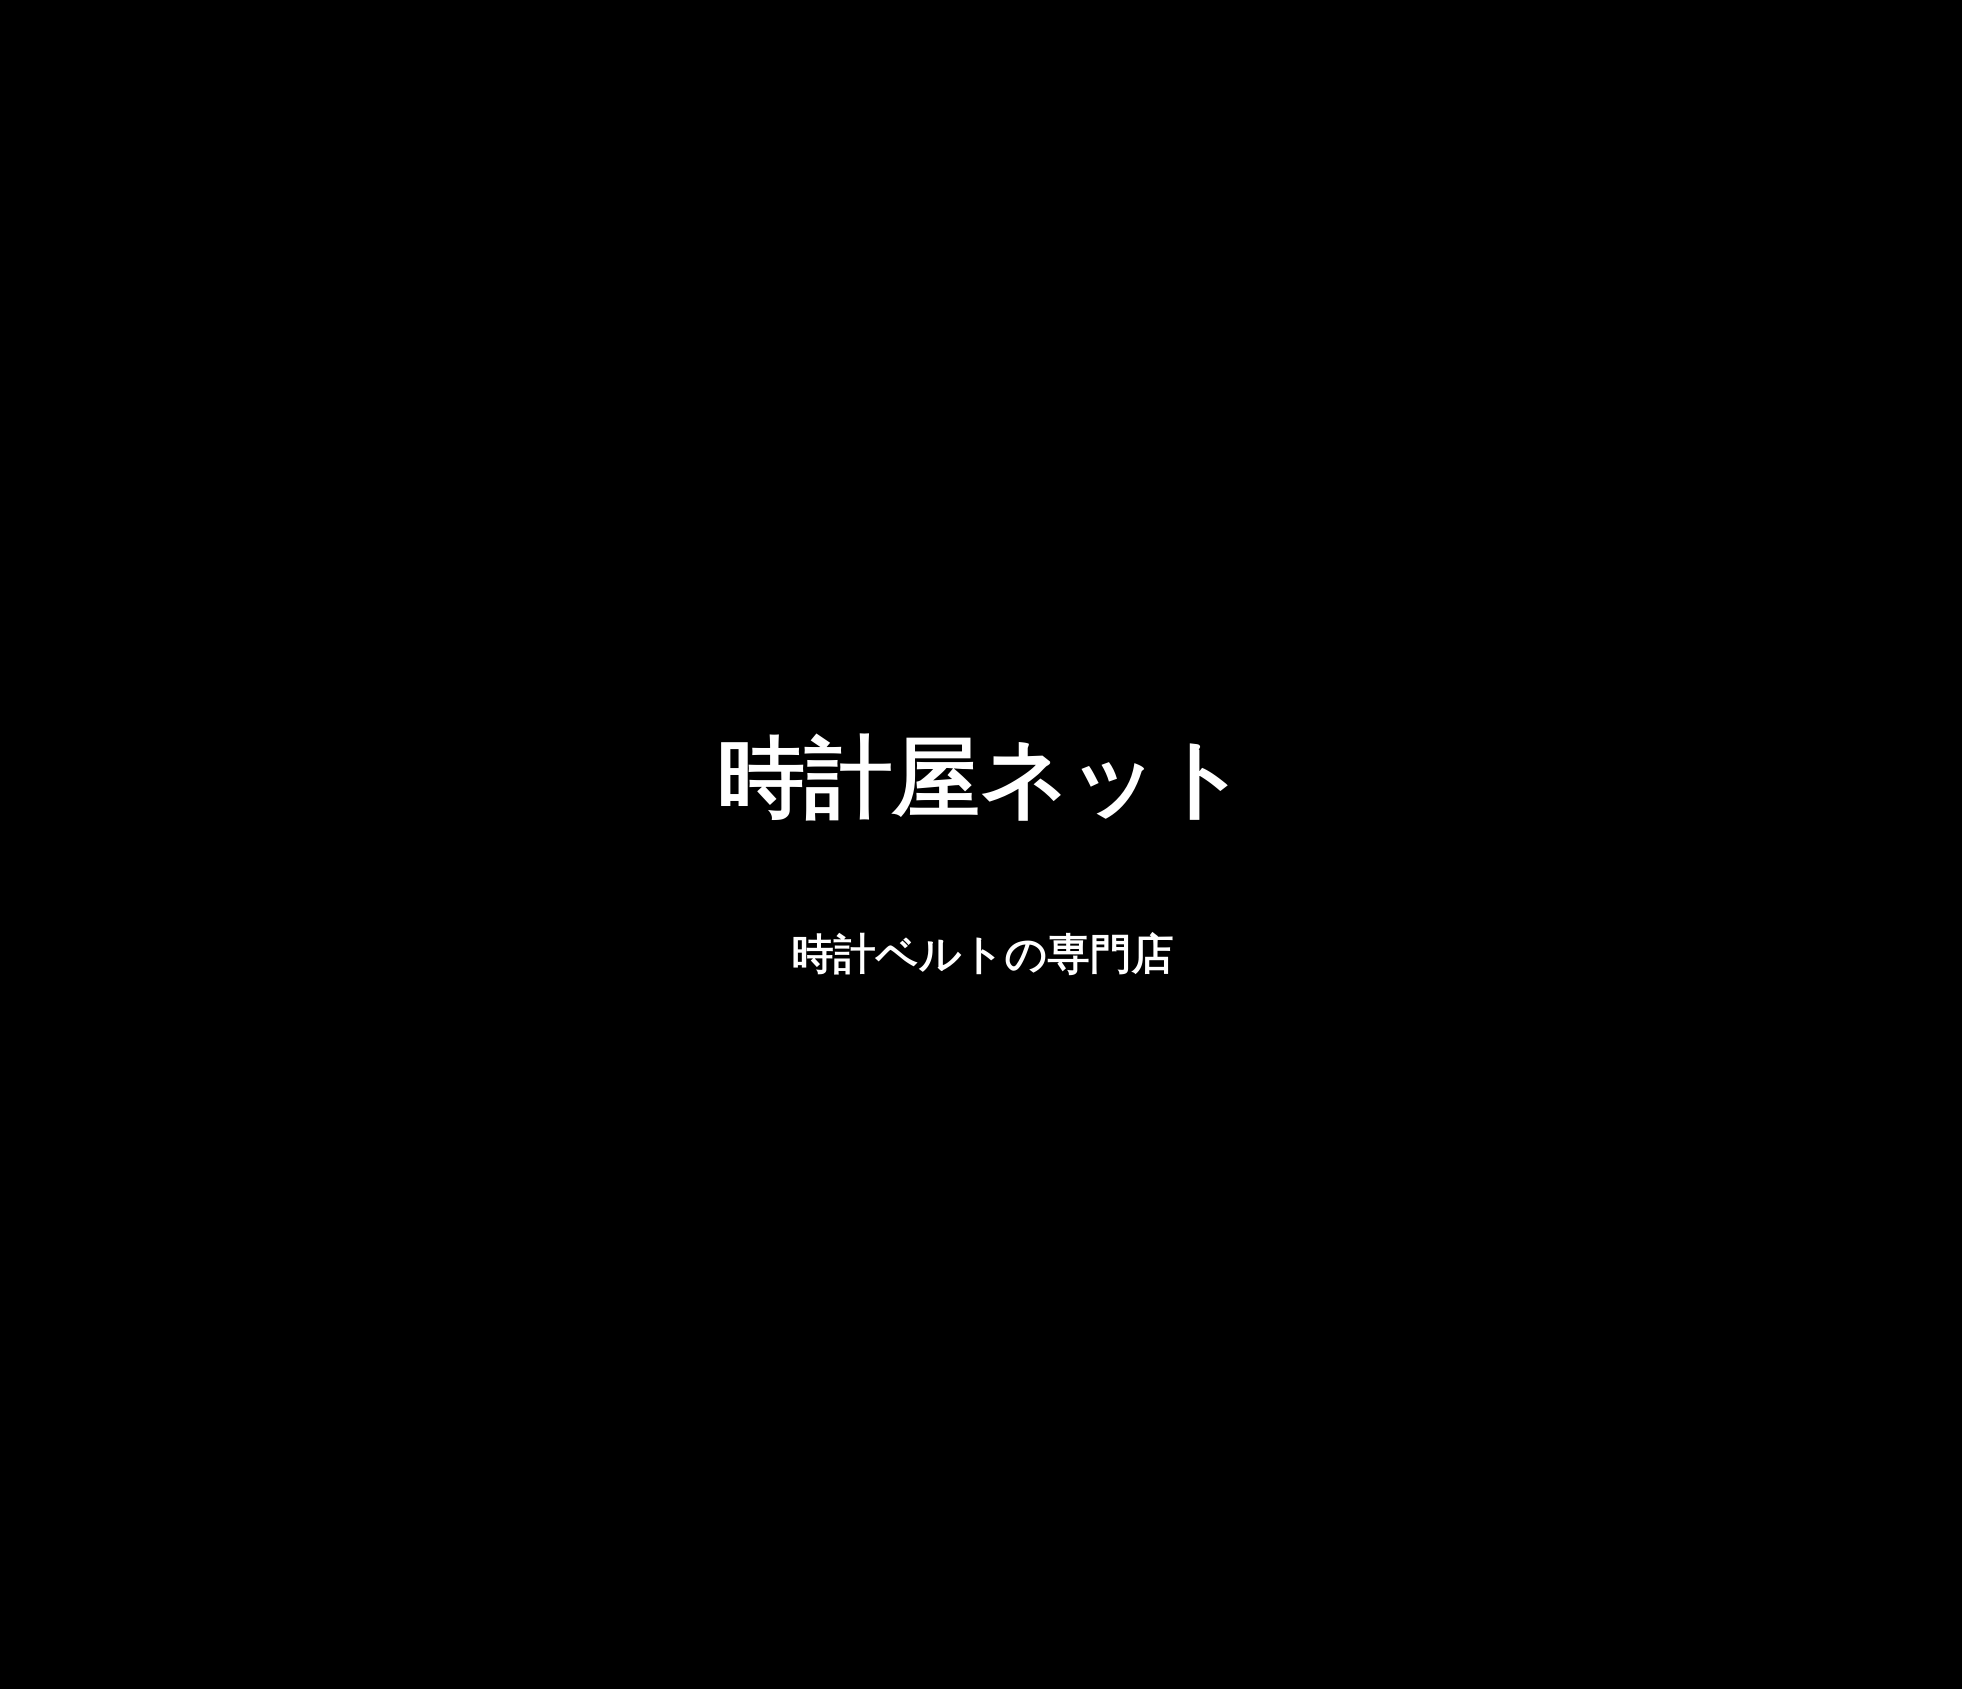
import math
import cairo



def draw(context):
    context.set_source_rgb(0, 0, 0)
    context.paint()
    context.select_font_face("WenQuanYi Zen Hei", cairo.FontSlant.NORMAL, cairo.FontWeight.BOLD)
    context.set_font_size(87.5)
    context.set_source_rgb(1, 1, 1)
    context.move_to(716, 809)
    context.show_text("時計屋ネット")
    context.set_font_size(42)
    context.move_to(791, 969)
    context.show_text("時計ベルトの専門店")


surface = cairo.ImageSurface(cairo.Format.RGB24, 1962, 1689)
context = cairo.Context(surface)
options = cairo.FontOptions()
options.set_hint_metrics(cairo.HintMetrics.OFF)
options.set_hint_style(cairo.HintStyle.NONE)
context.set_font_options(options)
context.set_miter_limit(4)
draw(context)
surface.write_to_png("out.png")
